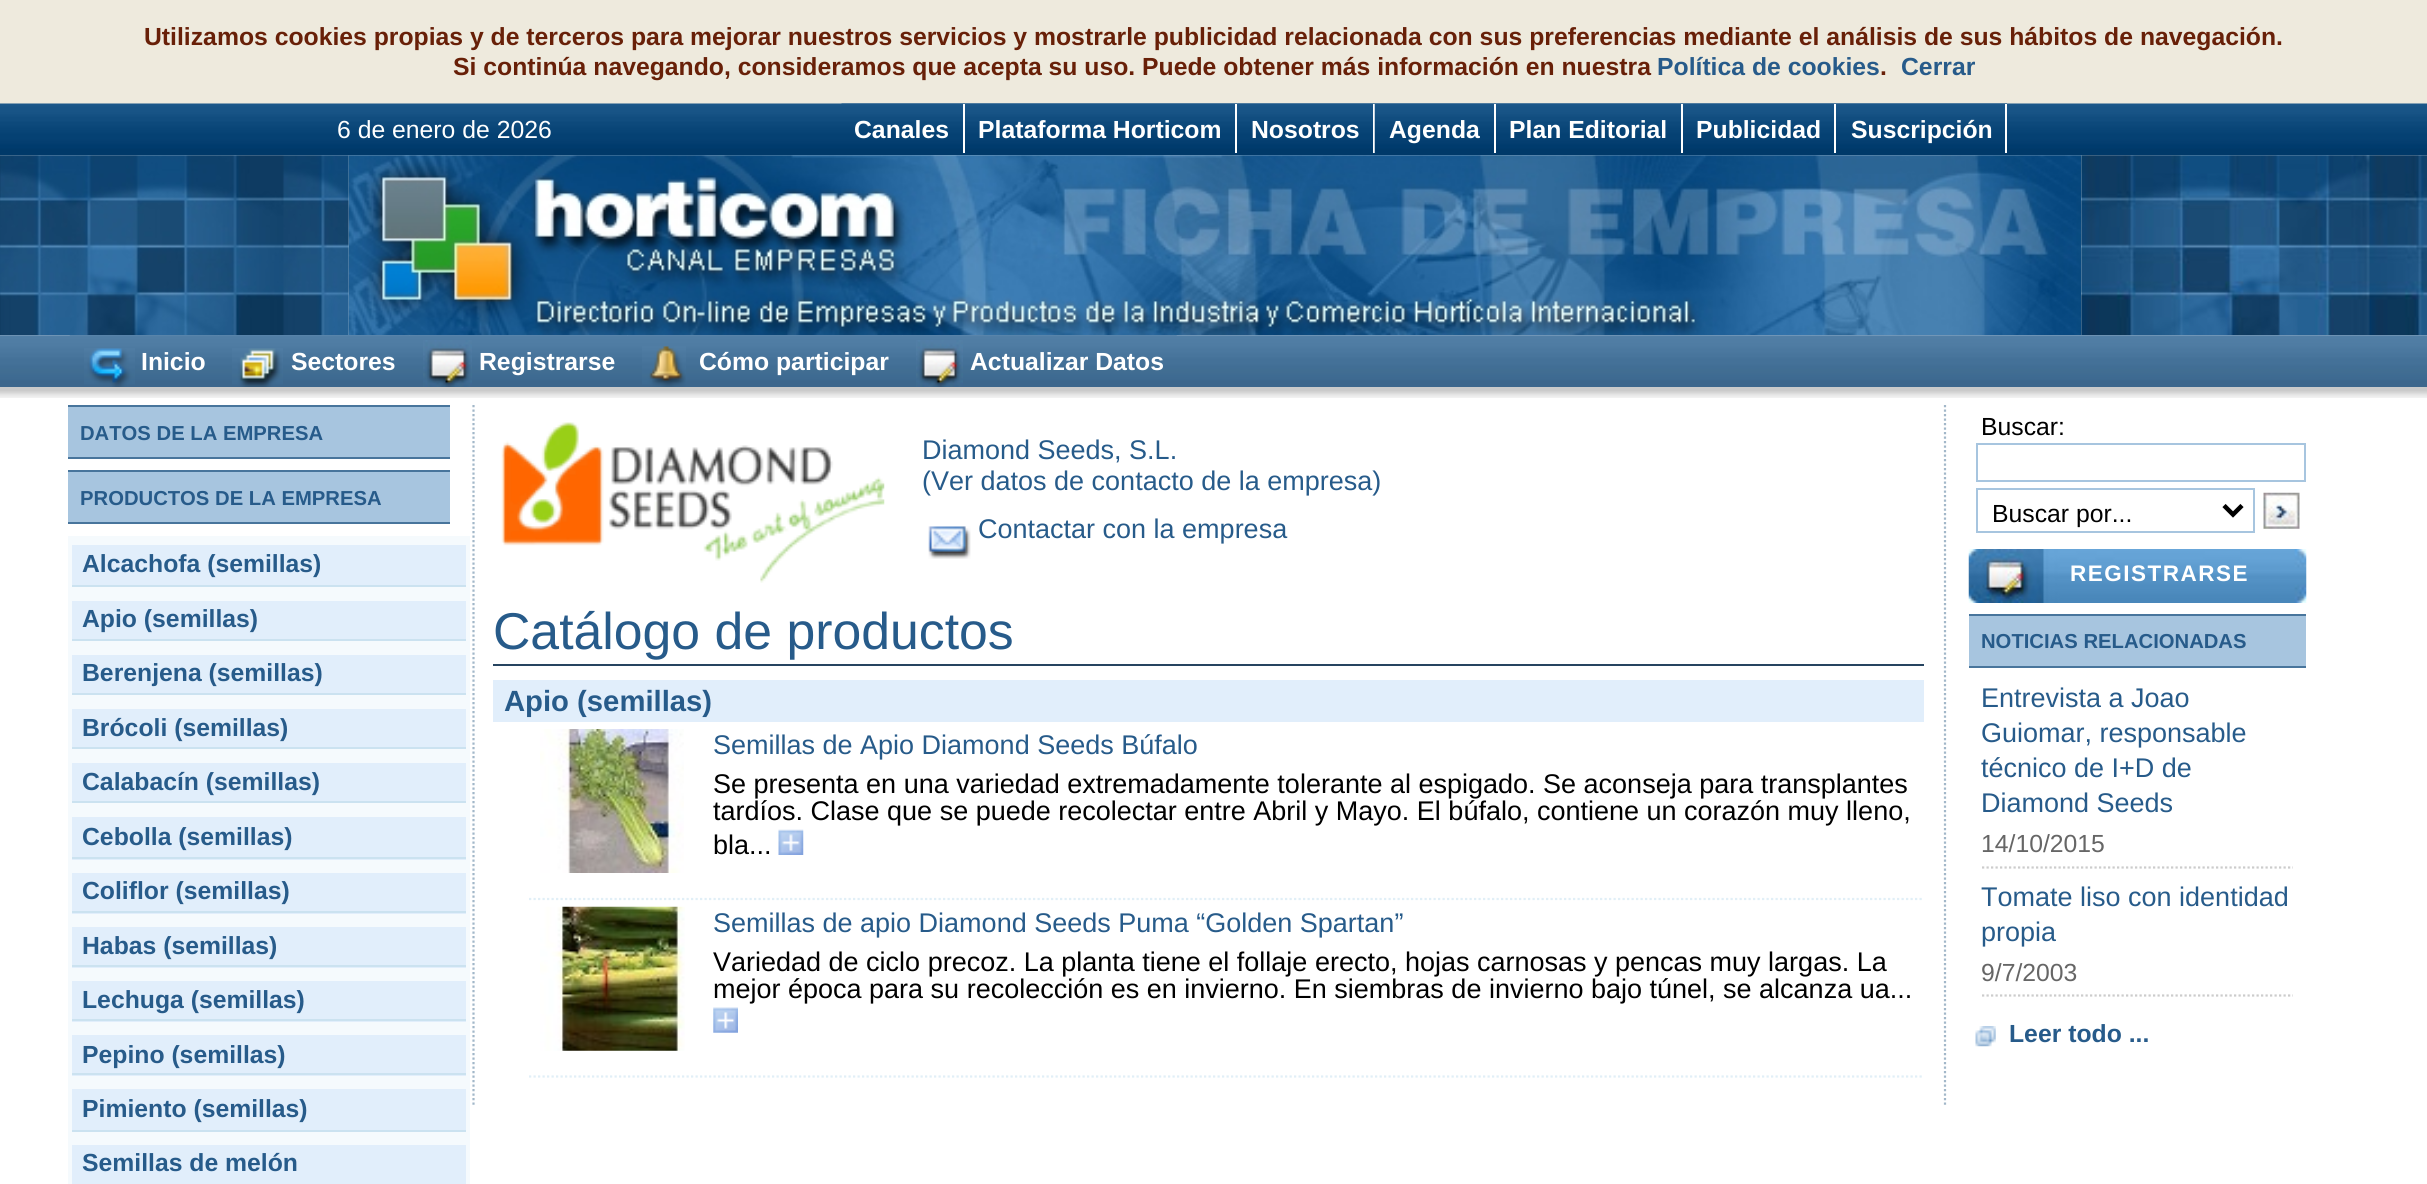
import math
import cairo



def draw_spaced(context, x, y, s, letter, word):
    context.move_to(x, y)
    for ch in s:
        context.show_text(ch)
        context.rel_move_to(letter + word * (ch == ' '), 0)


def draw_image(context, path, x, y, w, h):
    context.save()
    context.set_source_surface(cairo.ImageSurface.create_from_png(path), x, y)
    context.rectangle(x, y, w, h)
    context.fill()
    context.restore()


def draw(context):
    context.set_source_rgb(1, 1, 1)
    context.paint()
    context.set_source_rgb(238 / 255, 234 / 255, 221 / 255)
    context.rectangle(0, 0, 2427, 104)
    context.fill()
    draw_image(context, "images/1.png", 0, 103, 2427, 53)
    draw_image(context, "images/2.png", 841, 103, 125, 1)
    context.set_source_rgb(1, 1, 1)
    context.rectangle(963, 104, 2, 49)
    context.fill()
    draw_image(context, "images/3.png", 965, 103, 273, 1)
    context.rectangle(1235, 104, 2, 49)
    context.fill()
    draw_image(context, "images/4.png", 1237, 103, 138, 1)
    context.rectangle(1373, 104, 2, 49)
    context.fill()
    draw_image(context, "images/5.png", 1374, 103, 123, 50)
    context.rectangle(1494, 104, 2, 49)
    context.fill()
    draw_image(context, "images/6.png", 1496, 103, 187, 1)
    context.rectangle(1681, 104, 2, 49)
    context.fill()
    context.set_source_rgb(79 / 255, 123 / 255, 158 / 255)
    context.rectangle(1683, 103, 324, 1)
    context.fill()
    context.set_source_rgb(1, 1, 1)
    context.rectangle(1834, 104, 2, 49)
    context.fill()
    context.rectangle(2005, 104, 2, 49)
    context.fill()
    draw_image(context, "images/7.png", 0, 155, 349, 181)
    draw_image(context, "images/8.png", 348, 155, 1734, 181)
    draw_image(context, "images/9.png", 2081, 155, 346, 181)
    draw_image(context, "images/10.png", 0, 335, 2427, 52)
    draw_image(context, "images/11.png", 69, 335, 150, 1)
    draw_image(context, "images/12.png", 84, 348, 51, 39)
    draw_image(context, "images/13.png", 218, 335, 192, 1)
    draw_image(context, "images/14.png", 232, 348, 51, 39)
    draw_image(context, "images/15.png", 409, 335, 219, 1)
    draw_image(context, "images/16.png", 423, 340, 49, 47)
    draw_image(context, "images/17.png", 628, 335, 275, 1)
    draw_image(context, "images/18.png", 642, 346, 44, 41)
    draw_image(context, "images/19.png", 902, 335, 275, 1)
    draw_image(context, "images/20.png", 916, 340, 47, 47)
    draw_image(context, "images/21.png", 0, 387, 2427, 11)
    context.set_source_rgb(167 / 255, 197 / 255, 223 / 255)
    context.rectangle(68, 407, 382, 50)
    context.fill()
    context.set_source_rgb(72 / 255, 117 / 255, 156 / 255)
    context.rectangle(68, 405, 382, 2)
    context.fill()
    context.rectangle(68, 457, 382, 2)
    context.fill()
    context.set_source_rgb(167 / 255, 197 / 255, 223 / 255)
    context.rectangle(68, 472, 382, 50)
    context.fill()
    context.set_source_rgb(72 / 255, 117 / 255, 156 / 255)
    context.rectangle(68, 470, 382, 2)
    context.fill()
    context.rectangle(68, 522, 382, 2)
    context.fill()
    context.set_source_rgb(245 / 255, 250 / 255, 253 / 255)
    context.rectangle(68, 536, 402, 648)
    context.fill()
    context.set_source_rgb(225 / 255, 238 / 255, 251 / 255)
    context.rectangle(72, 545, 394, 40)
    context.fill()
    context.set_source_rgb(203 / 255, 226 / 255, 240 / 255)
    context.rectangle(72, 585, 394, 2)
    context.fill()
    context.set_source_rgb(225 / 255, 238 / 255, 251 / 255)
    context.rectangle(72, 601, 394, 38)
    context.fill()
    context.set_source_rgb(203 / 255, 226 / 255, 240 / 255)
    context.rectangle(72, 639, 394, 2)
    context.fill()
    context.set_source_rgb(225 / 255, 238 / 255, 251 / 255)
    context.rectangle(72, 655, 394, 38)
    context.fill()
    context.set_source_rgb(203 / 255, 226 / 255, 240 / 255)
    context.rectangle(72, 693, 394, 2)
    context.fill()
    context.set_source_rgb(225 / 255, 238 / 255, 251 / 255)
    context.rectangle(72, 709, 394, 38)
    context.fill()
    context.set_source_rgb(203 / 255, 226 / 255, 240 / 255)
    context.rectangle(72, 747, 394, 2)
    context.fill()
    context.set_source_rgb(225 / 255, 238 / 255, 251 / 255)
    context.rectangle(72, 763, 394, 38)
    context.fill()
    context.set_source_rgb(203 / 255, 226 / 255, 240 / 255)
    context.rectangle(72, 801, 394, 2)
    context.fill()
    context.set_source_rgb(225 / 255, 238 / 255, 251 / 255)
    context.rectangle(72, 817, 394, 43)
    context.fill()
    context.set_source_rgb(203 / 255, 226 / 255, 240 / 255)
    context.rectangle(72, 857, 394, 2)
    context.fill()
    context.set_source_rgb(225 / 255, 238 / 255, 251 / 255)
    context.rectangle(72, 873, 394, 41)
    context.fill()
    context.set_source_rgb(203 / 255, 226 / 255, 240 / 255)
    context.rectangle(72, 911, 394, 2)
    context.fill()
    context.set_source_rgb(225 / 255, 238 / 255, 251 / 255)
    context.rectangle(72, 927, 394, 41)
    context.fill()
    context.set_source_rgb(203 / 255, 226 / 255, 240 / 255)
    context.rectangle(72, 965, 394, 2)
    context.fill()
    context.set_source_rgb(225 / 255, 238 / 255, 251 / 255)
    context.rectangle(72, 981, 394, 41)
    context.fill()
    context.set_source_rgb(203 / 255, 226 / 255, 240 / 255)
    context.rectangle(72, 1019, 394, 2)
    context.fill()
    context.set_source_rgb(225 / 255, 238 / 255, 251 / 255)
    context.rectangle(72, 1035, 394, 41)
    context.fill()
    context.set_source_rgb(203 / 255, 226 / 255, 240 / 255)
    context.rectangle(72, 1073, 394, 2)
    context.fill()
    context.set_source_rgb(225 / 255, 238 / 255, 251 / 255)
    context.rectangle(72, 1089, 394, 41)
    context.fill()
    context.set_source_rgb(203 / 255, 226 / 255, 240 / 255)
    context.rectangle(72, 1130, 394, 2)
    context.fill()
    context.set_source_rgb(225 / 255, 238 / 255, 251 / 255)
    context.rectangle(72, 1145, 394, 39)
    context.fill()
    context.new_path()
    context.move_to(1945, 405)
    context.line_to(1945, 1105)
    context.set_source_rgb(162 / 255, 183 / 255, 201 / 255)
    context.set_line_width(2.2)
    context.set_dash([2.25, 2.25])
    context.stroke()
    context.new_path()
    context.move_to(473.5, 405)
    context.line_to(473.5, 1105)
    context.stroke()
    draw_image(context, "images/22.png", 501, 422, 384, 161)
    draw_image(context, "images/23.png", 928, 526, 43, 33)
    context.set_source_rgb(38 / 255, 68 / 255, 96 / 255)
    context.rectangle(493, 664, 1431, 2)
    context.fill()
    context.set_source_rgb(225 / 255, 238 / 255, 251 / 255)
    context.rectangle(493, 680, 1431, 42)
    context.fill()
    context.new_path()
    context.move_to(529, 899)
    context.line_to(1924, 899)
    context.set_source_rgb(225 / 255, 239 / 255, 247 / 255)
    context.stroke()
    draw_image(context, "images/24.png", 540, 729, 144, 144)
    draw_image(context, "images/25.png", 778, 829, 26, 26)
    context.new_path()
    context.move_to(529, 1076.5)
    context.line_to(1924, 1076.5)
    context.stroke()
    draw_image(context, "images/26.png", 540, 906, 145, 145)
    draw_image(context, "images/27.png", 713, 1007, 25, 26)
    context.rectangle(1977, 444, 328, 37)
    context.set_source_rgb(167 / 255, 197 / 255, 223 / 255)
    context.set_line_width(2)
    context.set_dash([])
    context.stroke()
    context.rectangle(1977, 489, 277, 43)
    context.stroke()
    context.new_path()
    context.move_to(2224, 505.5)
    context.line_to(2233, 514.5)
    context.line_to(2242, 505.5)
    context.set_source_rgb(0, 0, 0)
    context.set_line_width(4.5)
    context.stroke()
    draw_image(context, "images/28.png", 2263, 492, 37, 37)
    draw_image(context, "images/29.png", 1968, 549, 339, 54)
    context.set_source_rgb(167 / 255, 197 / 255, 223 / 255)
    context.rectangle(1969, 616, 337, 50)
    context.fill()
    context.set_source_rgb(72 / 255, 117 / 255, 156 / 255)
    context.rectangle(1969, 614, 337, 2)
    context.fill()
    context.rectangle(1969, 666, 337, 2)
    context.fill()
    context.new_path()
    context.move_to(1982, 867.5)
    context.line_to(2293, 867.5)
    context.set_source_rgb(204 / 255, 204 / 255, 204 / 255)
    context.set_line_width(2.2)
    context.set_dash([2.25, 2.25])
    context.stroke()
    context.new_path()
    context.move_to(1982, 995.5)
    context.line_to(2293, 995.5)
    context.stroke()
    draw_image(context, "images/30.png", 1975, 1026, 21, 21)
    context.select_font_face("Liberation Sans", cairo.FontSlant.NORMAL, cairo.FontWeight.BOLD)
    context.set_font_size(24.75)
    context.set_source_rgb(104 / 255, 32 / 255, 8 / 255)
    context.move_to(144, 45)
    context.show_text("Utilizamos cookies propias y de terceros para mejorar nuestros servicios y mostrarle publicidad relacionada con sus preferencias mediante el análisis de sus hábitos de navegación.")
    context.move_to(453, 75)
    context.show_text("Si continúa navegando, consideramos que acepta su uso. Puede obtener más información en nuestra")
    context.set_source_rgb(39 / 255, 91 / 255, 138 / 255)
    context.move_to(1657, 75)
    context.show_text("Política de cookies")
    context.set_source_rgb(104 / 255, 32 / 255, 8 / 255)
    context.move_to(1880, 75)
    context.show_text(".")
    context.set_source_rgb(39 / 255, 91 / 255, 138 / 255)
    context.move_to(1901, 75)
    context.show_text("Cerrar")
    context.select_font_face("Liberation Sans")
    context.set_source_rgb(1, 1, 1)
    context.move_to(337, 138)
    context.show_text("6 de enero de 2026")
    context.select_font_face("Liberation Sans", cairo.FontSlant.NORMAL, cairo.FontWeight.BOLD)
    context.move_to(854, 138)
    context.show_text("Canales")
    context.move_to(978, 138)
    context.show_text("Plataforma Horticom")
    context.move_to(1251, 138)
    context.show_text("Nosotros")
    context.move_to(1389, 138)
    context.show_text("Agenda")
    context.move_to(1509, 138)
    context.show_text("Plan Editorial")
    context.move_to(1696, 138)
    context.show_text("Publicidad")
    context.move_to(1851, 138)
    context.show_text("Suscripción")
    context.move_to(141, 370)
    context.show_text("Inicio")
    context.move_to(291, 370)
    context.show_text("Sectores")
    context.move_to(479, 370)
    context.show_text("Registrarse")
    context.move_to(699, 370)
    context.show_text("Cómo participar")
    context.move_to(970, 370)
    context.show_text("Actualizar Datos")
    context.set_font_size(20.25)
    context.set_source_rgb(39 / 255, 91 / 255, 138 / 255)
    context.move_to(80, 440)
    context.show_text("DATOS DE LA EMPRESA")
    context.move_to(80, 505)
    context.show_text("PRODUCTOS DE LA EMPRESA")
    context.set_font_size(24.75)
    context.move_to(82, 572)
    context.show_text("Alcachofa (semillas)")
    context.move_to(82, 627)
    context.show_text("Apio (semillas)")
    context.move_to(82, 681)
    context.show_text("Berenjena (semillas)")
    context.move_to(82, 736)
    context.show_text("Brócoli (semillas)")
    context.move_to(82, 790)
    context.show_text("Calabacín (semillas)")
    context.move_to(82, 845)
    context.show_text("Cebolla (semillas)")
    context.move_to(82, 899)
    context.show_text("Coliflor (semillas)")
    context.move_to(82, 954)
    context.show_text("Habas (semillas)")
    context.move_to(82, 1008)
    context.show_text("Lechuga (semillas)")
    context.move_to(82, 1063)
    context.show_text("Pepino (semillas)")
    context.move_to(82, 1117)
    context.show_text("Pimiento (semillas)")
    context.move_to(82, 1171)
    context.show_text("Semillas de melón")
    context.select_font_face("Liberation Sans")
    context.set_font_size(27)
    context.move_to(922, 459)
    context.show_text("Diamond Seeds, S.L.")
    context.move_to(922, 490)
    context.show_text("(Ver datos de contacto de la empresa)")
    context.move_to(978, 538)
    context.show_text("Contactar con la empresa")
    context.set_font_size(51.75)
    context.move_to(493, 649)
    context.show_text("Catálogo de productos")
    context.select_font_face("Liberation Sans", cairo.FontSlant.NORMAL, cairo.FontWeight.BOLD)
    context.set_font_size(29.25)
    context.move_to(504, 711)
    context.show_text("Apio (semillas)")
    context.select_font_face("Liberation Sans")
    context.set_font_size(27)
    context.move_to(713, 754)
    context.show_text("Semillas de Apio Diamond Seeds Búfalo")
    context.set_source_rgb(0, 0, 0)
    context.move_to(713, 793)
    context.show_text("Se presenta en una variedad extremadamente tolerante al espigado. Se aconseja para transplantes")
    context.move_to(713, 820)
    context.show_text("tardíos. Clase que se puede recolectar entre Abril y Mayo. El búfalo, contiene un corazón muy lleno,")
    context.move_to(713, 854)
    context.show_text("bla...")
    context.set_source_rgb(39 / 255, 91 / 255, 138 / 255)
    context.move_to(713, 932)
    context.show_text("Semillas de apio Diamond Seeds Puma “Golden Spartan”")
    context.set_source_rgb(0, 0, 0)
    context.move_to(713, 971)
    context.show_text("Variedad de ciclo precoz. La planta tiene el follaje erecto, hojas carnosas y pencas muy largas. La")
    context.move_to(713, 998)
    context.show_text("mejor época para su recolección es en invierno. En siembras de invierno bajo túnel, se alcanza ua...")
    context.set_font_size(24.75)
    context.move_to(1981, 435)
    context.show_text("Buscar:")
    context.move_to(1992, 522)
    context.show_text("Buscar por...")
    context.select_font_face("Liberation Sans", cairo.FontSlant.NORMAL, cairo.FontWeight.BOLD)
    context.set_font_size(22.5)
    context.set_source_rgb(1, 1, 1)
    draw_spaced(context, 2070, 581, "REGISTRARSE", 1.5, 0)
    context.set_font_size(20.25)
    context.set_source_rgb(39 / 255, 91 / 255, 138 / 255)
    context.move_to(1981, 648)
    context.show_text("NOTICIAS RELACIONADAS")
    context.select_font_face("Liberation Sans")
    context.set_font_size(27)
    context.move_to(1981, 707)
    context.show_text("Entrevista a Joao")
    context.move_to(1981, 742)
    context.show_text("Guiomar, responsable")
    context.move_to(1981, 777)
    context.show_text("técnico de I+D de")
    context.move_to(1981, 812)
    context.show_text("Diamond Seeds")
    context.set_font_size(24.75)
    context.set_source_rgb(102 / 255, 102 / 255, 102 / 255)
    context.move_to(1981, 852)
    context.show_text("14/10/2015")
    context.set_font_size(27)
    context.set_source_rgb(39 / 255, 91 / 255, 138 / 255)
    context.move_to(1981, 906)
    context.show_text("Tomate liso con identidad")
    context.move_to(1981, 941)
    context.show_text("propia")
    context.set_font_size(24.75)
    context.set_source_rgb(102 / 255, 102 / 255, 102 / 255)
    context.move_to(1981, 981)
    context.show_text("9/7/2003")
    context.select_font_face("Liberation Sans", cairo.FontSlant.NORMAL, cairo.FontWeight.BOLD)
    context.set_source_rgb(39 / 255, 91 / 255, 138 / 255)
    context.move_to(2009, 1042)
    context.show_text("Leer todo ...")


surface = cairo.ImageSurface(cairo.Format.RGB24, 2427, 1184)
context = cairo.Context(surface)
options = cairo.FontOptions()
options.set_hint_metrics(cairo.HintMetrics.OFF)
options.set_hint_style(cairo.HintStyle.NONE)
context.set_font_options(options)
context.set_miter_limit(4)
draw(context)
surface.write_to_png("out.png")
